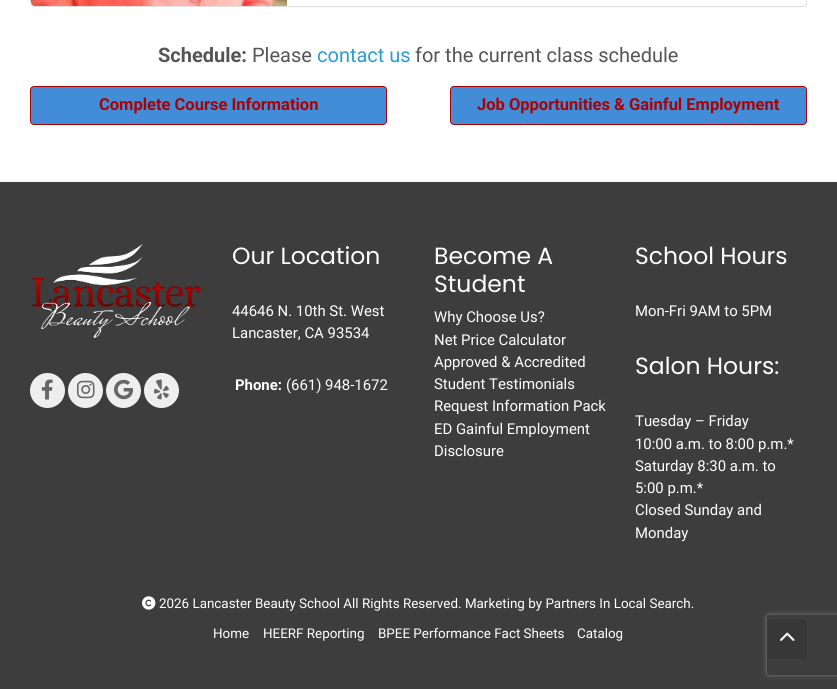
import math
import cairo



def rounded_rect(context, x, y, w, h, r):
    context.new_sub_path()
    for i, (u, v) in enumerate([(x + w - r, y + h - r), (x + r, y + h - r), (x + r, y + r), (x + w - r, y + r)]):
        context.arc(u, v, r, i * math.pi / 2, (i + 1) * math.pi / 2)
    context.close_path()


def draw_shadow(context, x, y, w, h, r, blur, alpha):
    context.push_group_with_content(cairo.Content.ALPHA)
    context.set_operator(cairo.Operator.SOURCE)
    for i in range(15, -16, -2):
        e = blur * i / 6
        if min(w, h) + 2 * e > 0:
            context.set_source_rgba(0, 0, 0, alpha * math.erfc((i - 1) / 8.5) / 2)
            rounded_rect(context, x - e, y - e, w + 2 * e, h + 2 * e, max(0, min(r + e + blur * .6, min(w, h) / 2 + e)))
            context.fill()
    context.mask(context.pop_group())


def draw_image(context, path, x, y, w, h):
    context.save()
    context.set_source_surface(cairo.ImageSurface.create_from_png(path), x, y)
    context.rectangle(x, y, w, h)
    context.fill()
    context.restore()


def draw(context):
    context.set_source_rgb(1, 1, 1)
    context.paint()
    rounded_rect(context, 30.5, -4.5, 776, 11, 3.5)
    context.set_source_rgb(223 / 255, 223 / 255, 223 / 255)
    context.set_line_width(1)
    context.stroke()
    draw_image(context, "images/1.png", 31, 0, 256, 6)
    context.set_source_rgb(66 / 255, 140 / 255, 216 / 255)
    rounded_rect(context, 30.5, 86.5, 356, 38, 3.5)
    context.fill_preserve()
    context.set_source_rgb(171 / 255, 2 / 255, 1 / 255)
    context.stroke()
    context.set_source_rgb(66 / 255, 140 / 255, 216 / 255)
    rounded_rect(context, 450.5, 86.5, 356, 38, 3.5)
    context.fill_preserve()
    context.set_source_rgb(171 / 255, 2 / 255, 1 / 255)
    context.stroke()
    context.set_source_rgb(61 / 255, 61 / 255, 61 / 255)
    context.rectangle(0, 182, 837, 507)
    context.fill()
    draw_image(context, "images/2.png", 32, 243, 169, 96)
    context.set_source_rgb(238 / 255, 238 / 255, 238 / 255)
    context.arc(47.5, 390.5, 17.5, 0, 2 * math.pi)
    context.fill()
    draw_image(context, "images/3.png", 41, 379, 12, 21)
    context.arc(85.5, 390.5, 17.5, 0, 2 * math.pi)
    context.fill()
    draw_image(context, "images/4.png", 77, 380, 18, 19)
    context.arc(123.5, 390.5, 17.5, 0, 2 * math.pi)
    context.fill()
    draw_image(context, "images/5.png", 114, 379, 20, 21)
    context.arc(161.5, 390.5, 17.5, 0, 2 * math.pi)
    context.fill()
    draw_image(context, "images/6.png", 154, 379, 15, 21)
    draw_image(context, "images/7.png", 142, 596, 14, 14)
    context.save()
    context.set_fill_rule(cairo.FillRule.EVEN_ODD)
    context.new_path()
    context.move_to(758, 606)
    context.line_to(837, 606)
    context.line_to(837, 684)
    context.line_to(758, 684)
    context.close_path()
    context.move_to(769, 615)
    context.line_to(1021, 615)
    context.curve_to(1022, 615, 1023, 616, 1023, 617)
    context.line_to(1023, 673)
    context.curve_to(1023, 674, 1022, 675, 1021, 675)
    context.line_to(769, 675)
    context.curve_to(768, 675, 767, 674, 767, 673)
    context.line_to(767, 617)
    context.curve_to(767, 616, 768, 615, 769, 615)
    context.close_path()
    context.clip()
    context.set_source_rgb(128 / 255, 128 / 255, 128 / 255)
    draw_shadow(context, 767, 615, 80, 60, 2, 2.5, 1)
    context.restore()
    context.set_source_rgb(55 / 255, 55 / 255, 55 / 255)
    rounded_rect(context, 767, 619, 40, 40, 4)
    context.fill()
    draw_image(context, "images/8.png", 780, 632, 15, 9)
    context.select_font_face("Roboto", cairo.FontSlant.NORMAL, cairo.FontWeight.BOLD)
    context.set_font_size(20)
    context.set_source_rgb(85 / 255, 85 / 255, 85 / 255)
    context.move_to(158, 62)
    context.show_text("Schedule:")
    context.select_font_face("Roboto")
    context.move_to(252, 62)
    context.show_text("Please")
    context.set_source_rgb(42 / 255, 158 / 255, 212 / 255)
    context.move_to(317, 62)
    context.show_text("contact us")
    context.set_source_rgb(85 / 255, 85 / 255, 85 / 255)
    context.move_to(415, 62)
    context.show_text("for the current class schedule")
    context.select_font_face("Roboto", cairo.FontSlant.NORMAL, cairo.FontWeight.BOLD)
    context.set_font_size(16.5)
    context.set_source_rgb(171 / 255, 2 / 255, 1 / 255)
    context.move_to(99, 110)
    context.show_text("Complete Course Information")
    context.move_to(477, 110)
    context.show_text("Job Opportunities & Gainful Employment")
    context.select_font_face("Poppins")
    context.set_font_size(23.5)
    context.set_source_rgb(1, 1, 1)
    context.move_to(232, 264)
    context.show_text("Our Location")
    context.select_font_face("Roboto")
    context.set_font_size(14.9)
    context.move_to(232, 316)
    context.show_text("44646 N. 10th St. West")
    context.move_to(232, 338)
    context.show_text("Lancaster, CA 93534")
    context.select_font_face("Roboto", cairo.FontSlant.NORMAL, cairo.FontWeight.BOLD)
    context.move_to(235, 390)
    context.show_text("Phone:")
    context.select_font_face("Roboto")
    context.move_to(286, 390)
    context.show_text("(661) 948-1672")
    context.select_font_face("Poppins")
    context.set_font_size(23.5)
    context.move_to(434, 264)
    context.show_text("Become A")
    context.move_to(434, 292)
    context.show_text("Student")
    context.select_font_face("Roboto")
    context.set_font_size(14.9)
    context.move_to(434, 322)
    context.show_text("Why Choose Us?")
    context.move_to(434, 345)
    context.show_text("Net Price Calculator")
    context.move_to(434, 367)
    context.show_text("Approved & Accredited")
    context.move_to(434, 389)
    context.show_text("Student Testimonials")
    context.move_to(434, 411)
    context.show_text("Request Information Pack")
    context.move_to(434, 434)
    context.show_text("ED Gainful Employment")
    context.move_to(434, 456)
    context.show_text("Disclosure")
    context.select_font_face("Poppins")
    context.set_font_size(23.5)
    context.move_to(635, 264)
    context.show_text("School Hours")
    context.select_font_face("Roboto")
    context.set_font_size(14.9)
    context.move_to(635, 316)
    context.show_text("Mon-Fri 9AM to 5PM")
    context.select_font_face("Poppins")
    context.set_font_size(23.5)
    context.move_to(635, 374)
    context.show_text("Salon Hours:")
    context.select_font_face("Roboto")
    context.set_font_size(14.9)
    context.move_to(635, 426)
    context.show_text("Tuesday – Friday")
    context.move_to(635, 449)
    context.show_text("10:00 a.m. to 8:00 p.m.*")
    context.move_to(635, 471)
    context.show_text("Saturday 8:30 a.m. to")
    context.move_to(635, 493)
    context.show_text("5:00 p.m.*")
    context.move_to(635, 515)
    context.show_text("Closed Sunday and")
    context.move_to(635, 538)
    context.show_text("Monday")
    context.set_font_size(13.4)
    context.move_to(159, 608)
    context.show_text("2026 Lancaster Beauty School All Rights Reserved. Marketing by Partners In Local Search.")
    context.move_to(213, 638)
    context.show_text("Home")
    context.move_to(263, 638)
    context.show_text("HEERF Reporting")
    context.move_to(378, 638)
    context.show_text("BPEE Performance Fact Sheets")
    context.move_to(577, 638)
    context.show_text("Catalog")


surface = cairo.ImageSurface(cairo.Format.RGB24, 837, 689)
context = cairo.Context(surface)
options = cairo.FontOptions()
options.set_hint_metrics(cairo.HintMetrics.OFF)
options.set_hint_style(cairo.HintStyle.NONE)
context.set_font_options(options)
context.set_miter_limit(4)
draw(context)
surface.write_to_png("out.png")
